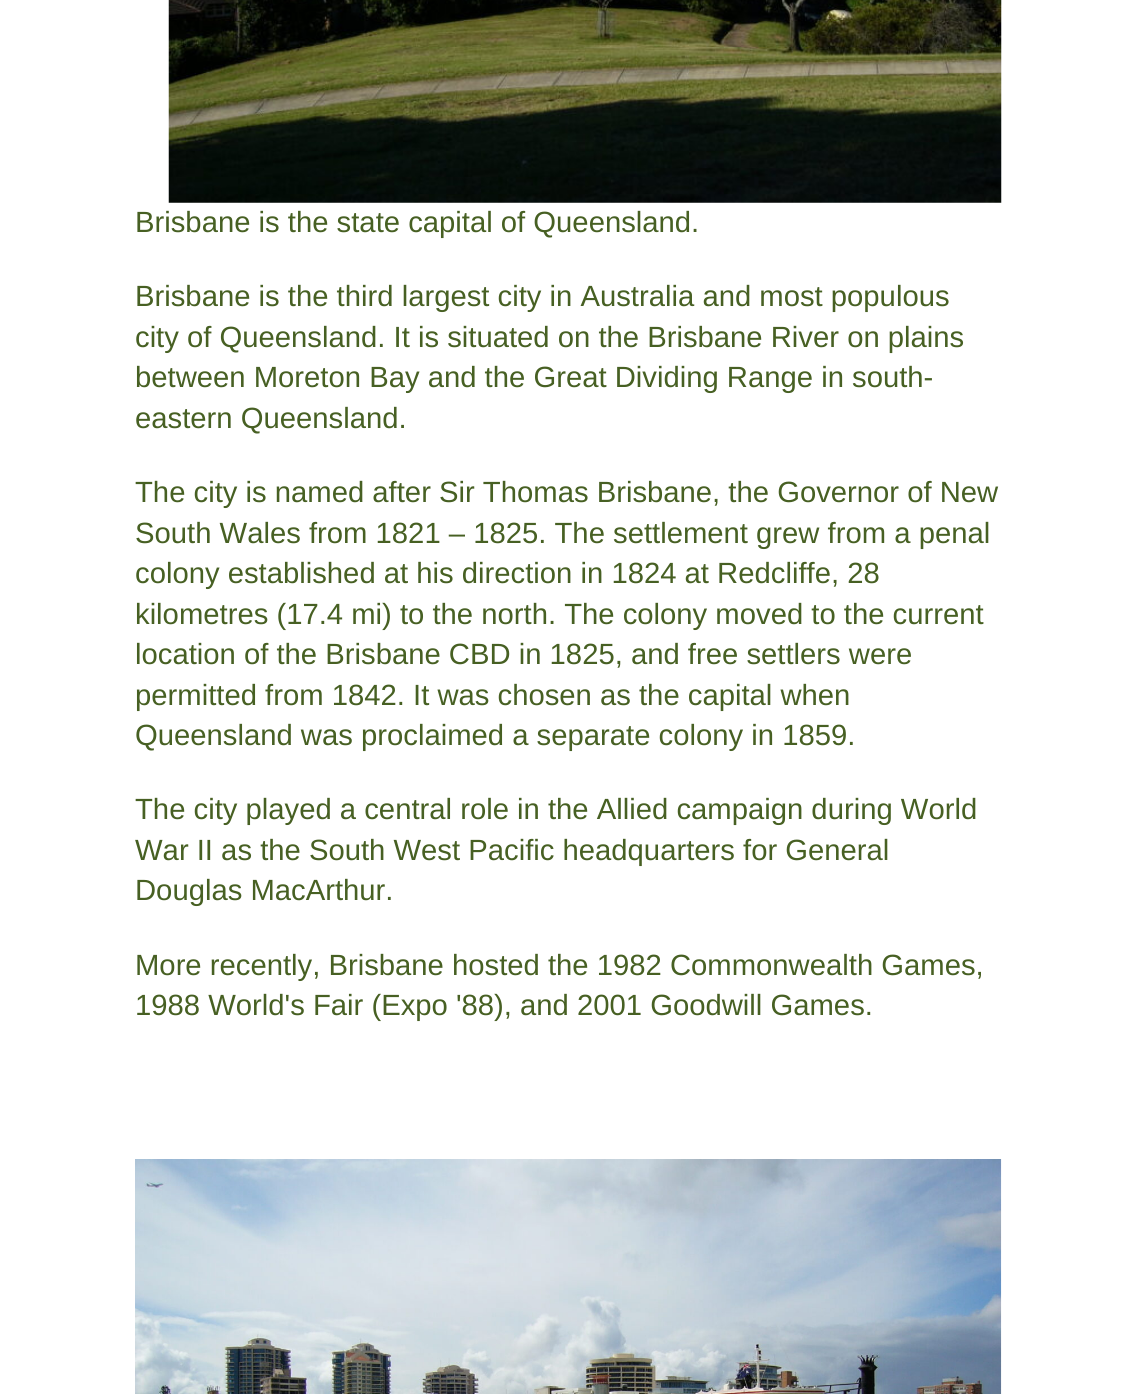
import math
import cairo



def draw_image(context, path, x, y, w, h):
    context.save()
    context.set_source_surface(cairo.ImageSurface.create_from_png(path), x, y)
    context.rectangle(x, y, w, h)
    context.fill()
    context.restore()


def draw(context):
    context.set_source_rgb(1, 1, 1)
    context.paint()
    draw_image(context, "images/1.png", 168, 0, 834, 203)
    draw_image(context, "images/2.png", 135, 1159, 867, 235)
    context.select_font_face("Liberation Sans")
    context.set_font_size(29.25)
    context.set_source_rgb(71 / 255, 96 / 255, 35 / 255)
    context.move_to(135, 232)
    context.show_text("Brisbane is the state capital of Queensland.")
    context.move_to(135, 306)
    context.show_text("Brisbane is the third largest city in Australia and most populous")
    context.move_to(135, 347)
    context.show_text("city of Queensland. It is situated on the Brisbane River on plains")
    context.move_to(135, 387)
    context.show_text("between Moreton Bay and the Great Dividing Range in south-")
    context.move_to(135, 428)
    context.show_text("eastern Queensland.")
    context.move_to(135, 502)
    context.show_text("The city is named after Sir Thomas Brisbane, the Governor of New")
    context.move_to(135, 543)
    context.show_text("South Wales from 1821 – 1825. The settlement grew from a penal")
    context.move_to(135, 583)
    context.show_text("colony established at his direction in 1824 at Redcliffe, 28")
    context.move_to(135, 624)
    context.show_text("kilometres (17.4 mi) to the north. The colony moved to the current")
    context.move_to(135, 664)
    context.show_text("location of the Brisbane CBD in 1825, and free settlers were")
    context.move_to(135, 705)
    context.show_text("permitted from 1842. It was chosen as the capital when")
    context.move_to(135, 745)
    context.show_text("Queensland was proclaimed a separate colony in 1859.")
    context.move_to(135, 819)
    context.show_text("The city played a central role in the Allied campaign during World")
    context.move_to(135, 860)
    context.show_text("War II as the South West Pacific headquarters for General")
    context.move_to(135, 900)
    context.show_text("Douglas MacArthur.")
    context.move_to(135, 975)
    context.show_text("More recently, Brisbane hosted the 1982 Commonwealth Games,")
    context.move_to(135, 1015)
    context.show_text("1988 World's Fair (Expo '88), and 2001 Goodwill Games.")


surface = cairo.ImageSurface(cairo.Format.RGB24, 1136, 1394)
context = cairo.Context(surface)
options = cairo.FontOptions()
options.set_hint_metrics(cairo.HintMetrics.OFF)
options.set_hint_style(cairo.HintStyle.NONE)
context.set_font_options(options)
context.set_miter_limit(4)
draw(context)
surface.write_to_png("out.png")
